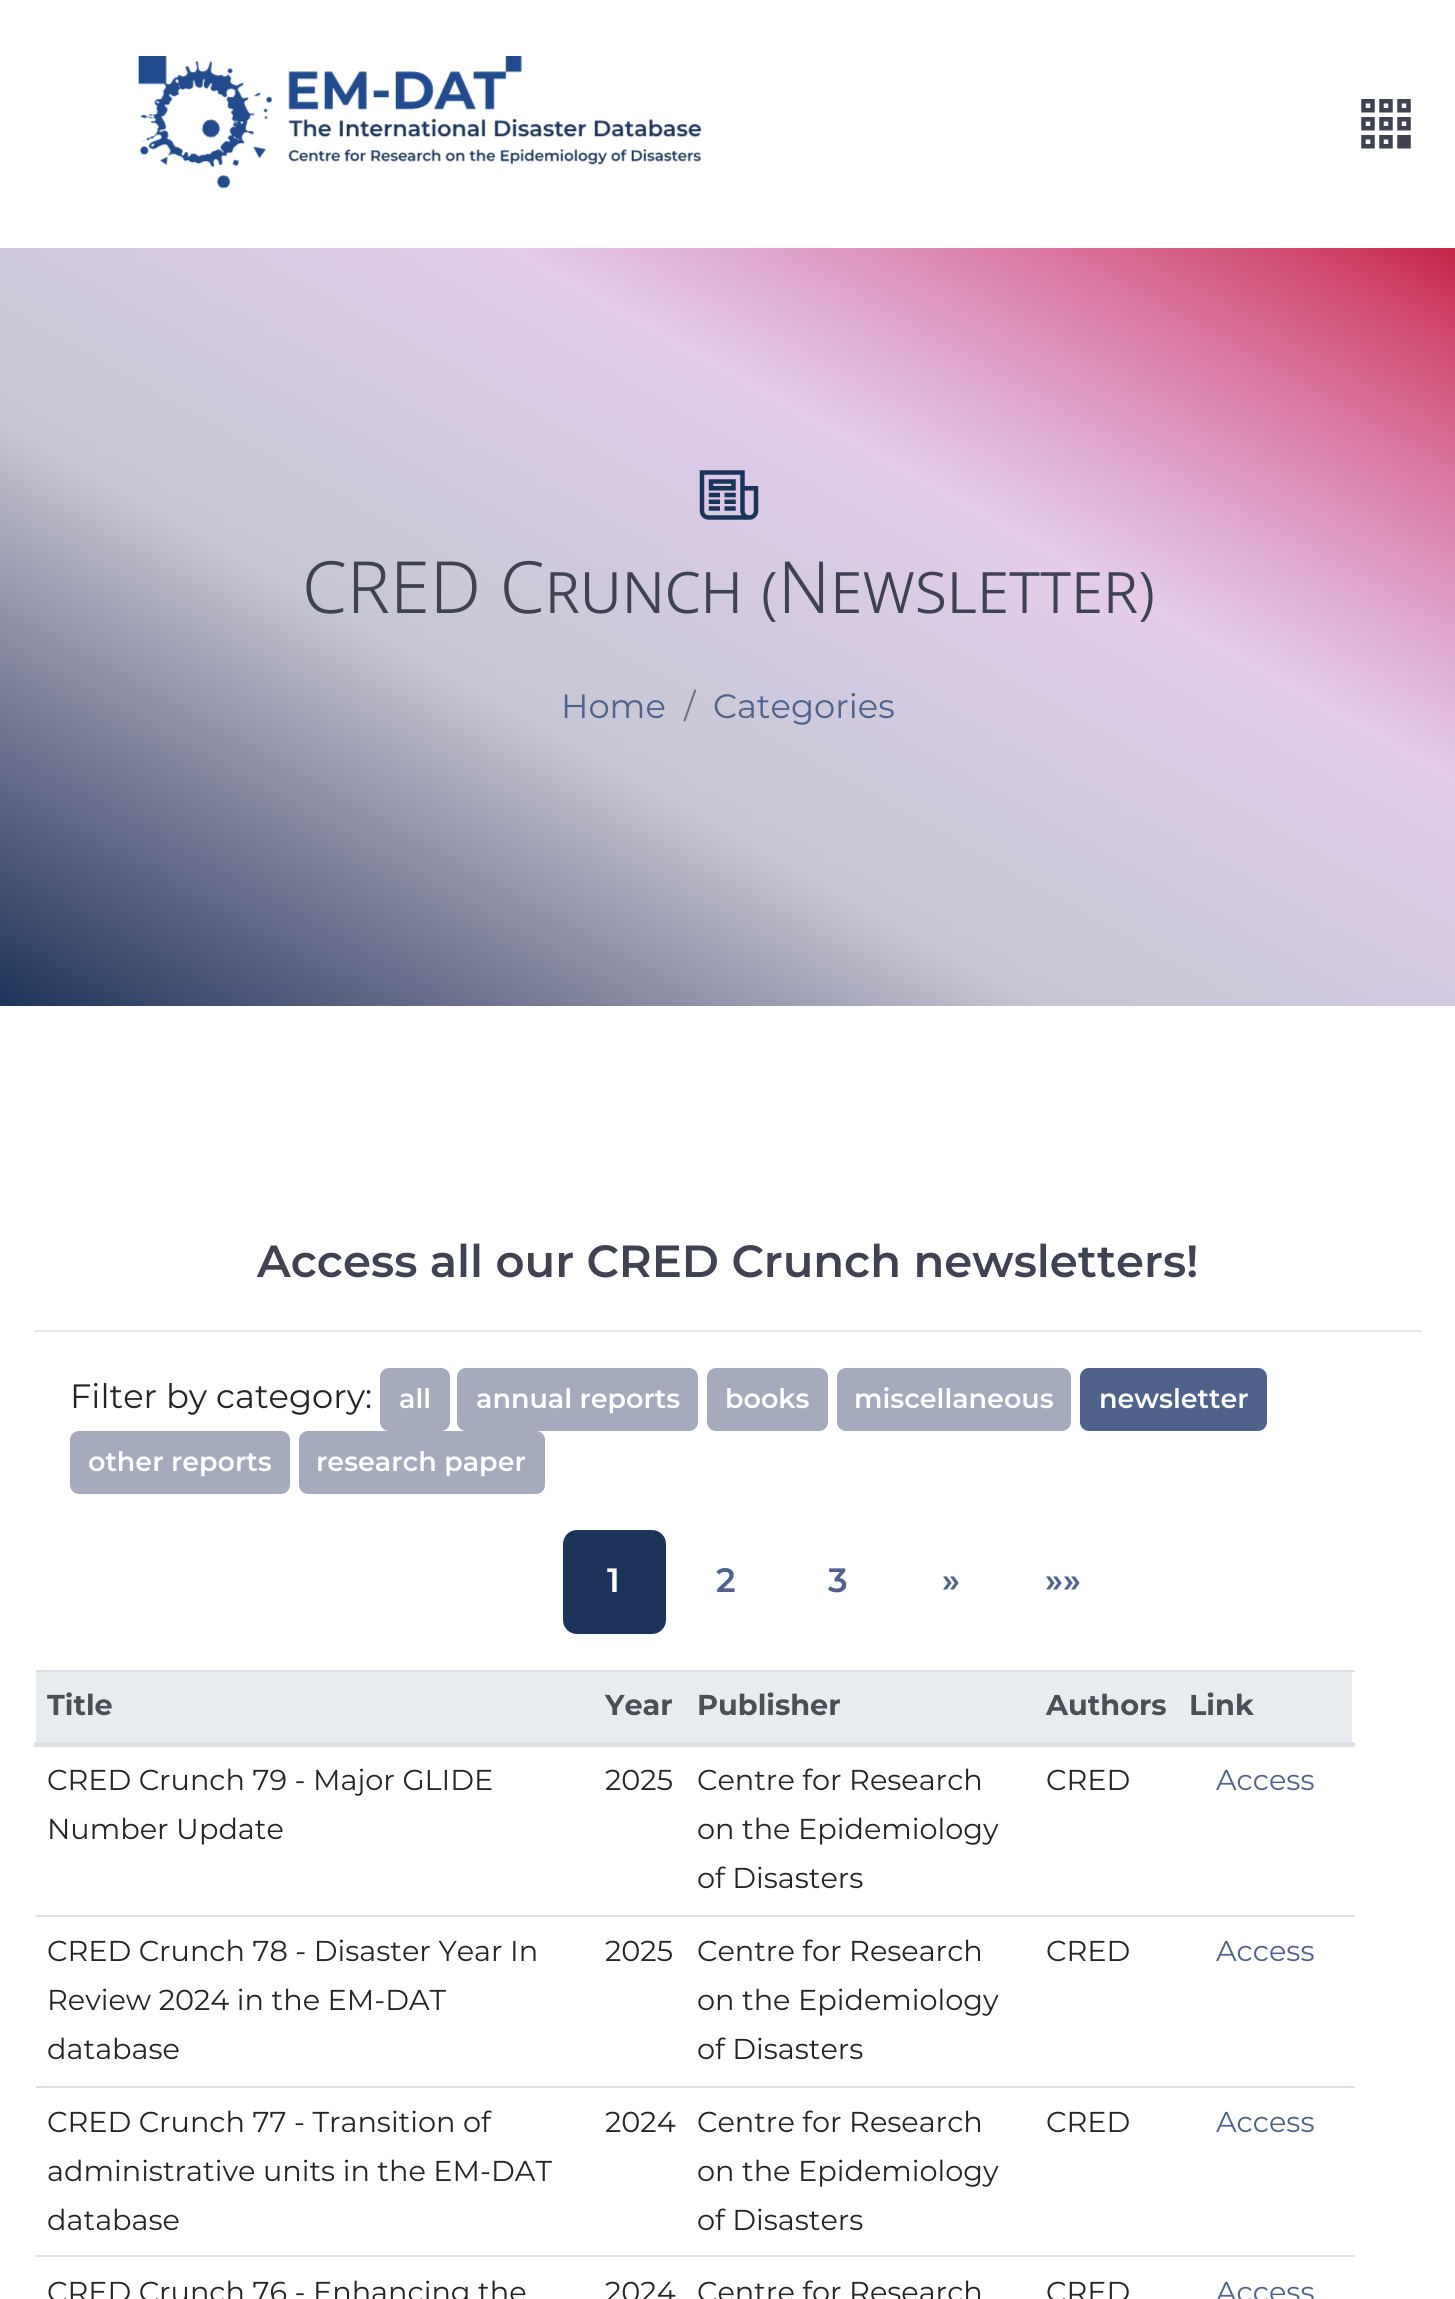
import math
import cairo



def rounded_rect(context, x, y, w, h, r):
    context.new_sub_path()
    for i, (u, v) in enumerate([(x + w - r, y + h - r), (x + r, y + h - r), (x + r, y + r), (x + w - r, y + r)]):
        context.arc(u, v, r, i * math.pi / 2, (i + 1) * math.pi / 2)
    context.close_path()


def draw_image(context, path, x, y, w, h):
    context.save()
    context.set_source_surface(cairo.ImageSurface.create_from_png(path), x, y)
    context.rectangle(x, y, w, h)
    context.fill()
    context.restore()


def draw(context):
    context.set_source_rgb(1, 1, 1)
    context.paint()
    draw_image(context, "images/1.png", 137, 56, 565, 133)
    draw_image(context, "images/2.png", 1361, 99, 50, 50)
    gradient = cairo.LinearGradient(379, 1219, 1076, -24)
    gradient.add_color_stop_rgba(0, 28 / 255, 52 / 255, 90 / 255, 1)
    gradient.add_color_stop_rgba(0.09, 74 / 255, 85 / 255, 119 / 255, 1)
    gradient.add_color_stop_rgba(0.18, 116 / 255, 120 / 255, 148 / 255, 1)
    gradient.add_color_stop_rgba(0.27, 157 / 255, 158 / 255, 179 / 255, 1)
    gradient.add_color_stop_rgba(0.36, 199 / 255, 198 / 255, 211 / 255, 1)
    gradient.add_color_stop_rgba(0.45, 206 / 255, 201 / 255, 220 / 255, 1)
    gradient.add_color_stop_rgba(0.55, 216 / 255, 203 / 255, 228 / 255, 1)
    gradient.add_color_stop_rgba(0.64, 228 / 255, 204 / 255, 234 / 255, 1)
    gradient.add_color_stop_rgba(0.73, 222 / 255, 163 / 255, 204 / 255, 1)
    gradient.add_color_stop_rgba(0.82, 218 / 255, 119 / 255, 161 / 255, 1)
    gradient.add_color_stop_rgba(0.91, 208 / 255, 72 / 255, 108 / 255, 1)
    gradient.add_color_stop_rgba(1, 186 / 255, 12 / 255, 47 / 255, 1)
    context.set_source(gradient)
    context.rectangle(0, 248, 1455, 758)
    context.fill()
    draw_image(context, "images/3.png", 699, 470, 60, 50)
    context.set_source_rgb(230 / 255, 230 / 255, 230 / 255)
    context.rectangle(34, 1330, 1388, 2)
    context.fill()
    context.set_source_rgb(165 / 255, 171 / 255, 189 / 255)
    rounded_rect(context, 380, 1368, 70, 63, 9)
    context.fill()
    rounded_rect(context, 457, 1368, 241, 63, 9)
    context.fill()
    rounded_rect(context, 707, 1368, 121, 63, 9)
    context.fill()
    rounded_rect(context, 837, 1368, 234, 63, 9)
    context.fill()
    context.set_source_rgb(79 / 255, 98 / 255, 140 / 255)
    rounded_rect(context, 1080, 1368, 187, 63, 9)
    context.fill()
    context.set_source_rgb(165 / 255, 171 / 255, 189 / 255)
    rounded_rect(context, 70, 1431, 220, 63, 9)
    context.fill()
    rounded_rect(context, 299, 1431, 246, 63, 9)
    context.fill()
    context.set_source_rgb(28 / 255, 52 / 255, 90 / 255)
    rounded_rect(context, 563, 1530, 103, 104, 14)
    context.fill()
    context.set_source_rgb(233 / 255, 236 / 255, 239 / 255)
    context.rectangle(36, 1672, 1316, 70)
    context.fill()
    context.set_source_rgb(222 / 255, 226 / 255, 230 / 255)
    context.rectangle(36, 1670, 1319, 2)
    context.fill()
    context.rectangle(34, 1742, 1321, 5)
    context.fill()
    context.rectangle(36, 1915, 1319, 2)
    context.fill()
    context.rectangle(36, 2086, 1319, 2)
    context.fill()
    context.rectangle(36, 2255, 1319, 2)
    context.fill()
    context.select_font_face("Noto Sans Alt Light")
    context.set_font_size(72)
    context.set_source_rgb(63 / 255, 66 / 255, 81 / 255)
    context.move_to(302, 613)
    context.show_text("CRED Crunch (Newsletter)")
    context.select_font_face("Montserrat")
    context.set_font_size(33.75)
    context.set_source_rgb(79 / 255, 98 / 255, 140 / 255)
    context.move_to(561, 718)
    context.show_text("Home")
    context.set_source_rgb(108 / 255, 117 / 255, 125 / 255)
    context.move_to(684, 718)
    context.show_text("/")
    context.set_source_rgb(79 / 255, 98 / 255, 140 / 255)
    context.move_to(713, 718)
    context.show_text("Categories")
    context.select_font_face("Montserrat SemiBold")
    context.set_font_size(45)
    context.set_source_rgb(63 / 255, 66 / 255, 81 / 255)
    context.move_to(257, 1277)
    context.show_text("Access all our CRED Crunch newsletters!")
    context.select_font_face("Montserrat")
    context.set_font_size(33.75)
    context.set_source_rgb(37 / 255, 37 / 255, 37 / 255)
    context.move_to(70, 1408)
    context.show_text("Filter by category:")
    context.select_font_face("Montserrat SemiBold")
    context.set_font_size(27)
    context.set_source_rgb(1, 1, 1)
    context.move_to(399, 1408)
    context.show_text("all")
    context.move_to(476, 1408)
    context.show_text("annual reports")
    context.move_to(725, 1408)
    context.show_text("books")
    context.move_to(854, 1408)
    context.show_text("miscellaneous")
    context.move_to(1099, 1408)
    context.show_text("newsletter")
    context.move_to(88, 1471)
    context.show_text("other reports")
    context.move_to(316, 1471)
    context.show_text("research paper")
    context.set_font_size(33.75)
    context.move_to(607, 1592)
    context.show_text("1")
    context.set_source_rgb(79 / 255, 98 / 255, 140 / 255)
    context.move_to(716, 1592)
    context.show_text("2")
    context.move_to(828, 1592)
    context.show_text("3")
    context.move_to(942, 1592)
    context.show_text("»")
    context.move_to(1045, 1592)
    context.show_text("»»")
    context.select_font_face("Montserrat", cairo.FontSlant.NORMAL, cairo.FontWeight.BOLD)
    context.set_font_size(28.75)
    context.set_source_rgb(73 / 255, 80 / 255, 87 / 255)
    context.move_to(47, 1715)
    context.show_text("Title")
    context.move_to(605, 1715)
    context.show_text("Year")
    context.move_to(697, 1715)
    context.show_text("Publisher")
    context.move_to(1046, 1715)
    context.show_text("Authors")
    context.move_to(1189, 1715)
    context.show_text("Link")
    context.select_font_face("Montserrat")
    context.set_source_rgb(37 / 255, 37 / 255, 37 / 255)
    context.move_to(47, 1790)
    context.show_text("CRED Crunch 79 - Major GLIDE")
    context.move_to(47, 1839)
    context.show_text("Number Update")
    context.move_to(605, 1790)
    context.show_text("2025")
    context.move_to(697, 1790)
    context.show_text("Centre for Research")
    context.move_to(697, 1839)
    context.show_text("on the Epidemiology")
    context.move_to(697, 1888)
    context.show_text("of Disasters")
    context.move_to(1046, 1790)
    context.show_text("CRED")
    context.set_source_rgb(79 / 255, 98 / 255, 140 / 255)
    context.move_to(1216, 1790)
    context.show_text("Access")
    context.set_source_rgb(37 / 255, 37 / 255, 37 / 255)
    context.move_to(47, 1961)
    context.show_text("CRED Crunch 78 - Disaster Year In")
    context.move_to(47, 2010)
    context.show_text("Review 2024 in the EM-DAT")
    context.move_to(47, 2059)
    context.show_text("database")
    context.move_to(605, 1961)
    context.show_text("2025")
    context.move_to(697, 1961)
    context.show_text("Centre for Research")
    context.move_to(697, 2010)
    context.show_text("on the Epidemiology")
    context.move_to(697, 2059)
    context.show_text("of Disasters")
    context.move_to(1046, 1961)
    context.show_text("CRED")
    context.set_source_rgb(79 / 255, 98 / 255, 140 / 255)
    context.move_to(1216, 1961)
    context.show_text("Access")
    context.set_source_rgb(37 / 255, 37 / 255, 37 / 255)
    context.move_to(47, 2132)
    context.show_text("CRED Crunch 77 - Transition of")
    context.move_to(47, 2181)
    context.show_text("administrative units in the EM-DAT")
    context.move_to(47, 2230)
    context.show_text("database")
    context.move_to(605, 2132)
    context.show_text("2024")
    context.move_to(697, 2132)
    context.show_text("Centre for Research")
    context.move_to(697, 2181)
    context.show_text("on the Epidemiology")
    context.move_to(697, 2230)
    context.show_text("of Disasters")
    context.move_to(1046, 2132)
    context.show_text("CRED")
    context.set_source_rgb(79 / 255, 98 / 255, 140 / 255)
    context.move_to(1216, 2132)
    context.show_text("Access")
    context.set_source_rgb(37 / 255, 37 / 255, 37 / 255)
    context.move_to(47, 2302)
    context.show_text("CRED Crunch 76 - Enhancing the")
    context.move_to(605, 2302)
    context.show_text("2024")
    context.move_to(697, 2302)
    context.show_text("Centre for Research")
    context.move_to(1046, 2302)
    context.show_text("CRED")
    context.set_source_rgb(79 / 255, 98 / 255, 140 / 255)
    context.move_to(1216, 2302)
    context.show_text("Access")


surface = cairo.ImageSurface(cairo.Format.RGB24, 1455, 2299)
context = cairo.Context(surface)
options = cairo.FontOptions()
options.set_hint_metrics(cairo.HintMetrics.OFF)
options.set_hint_style(cairo.HintStyle.NONE)
context.set_font_options(options)
context.set_miter_limit(4)
draw(context)
surface.write_to_png("out.png")
